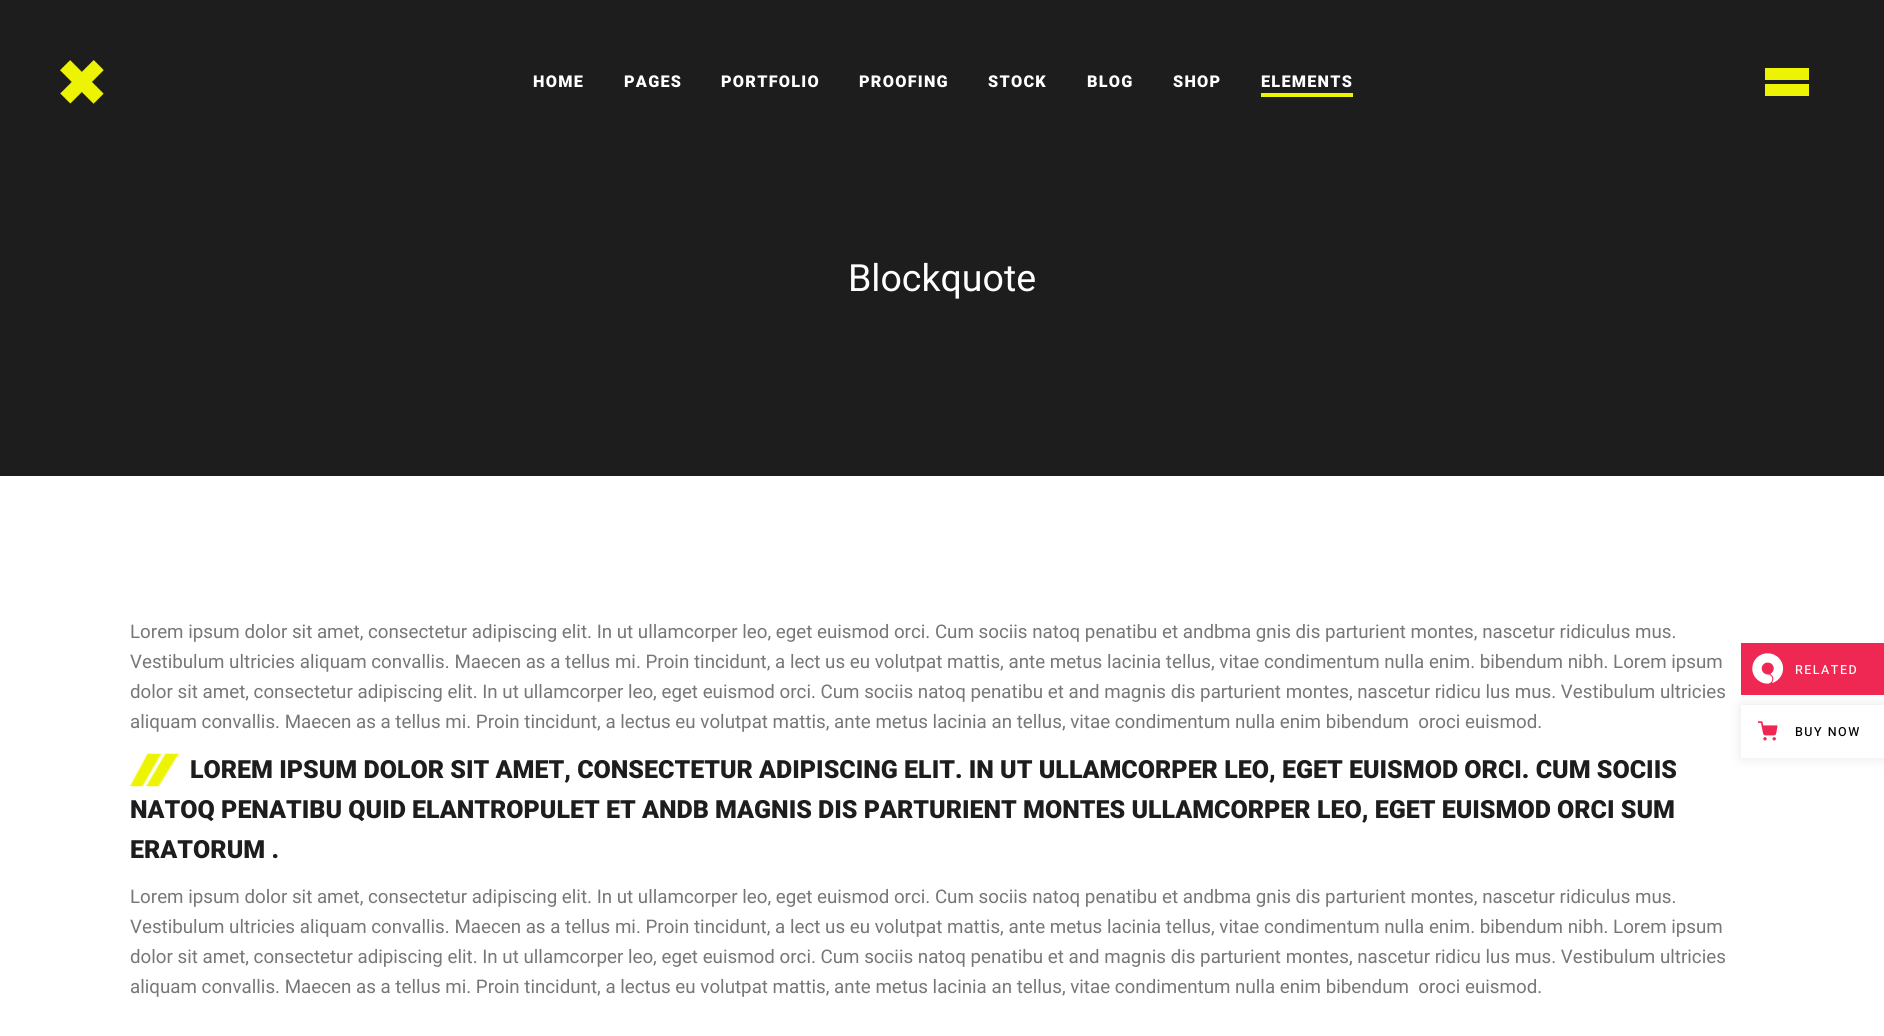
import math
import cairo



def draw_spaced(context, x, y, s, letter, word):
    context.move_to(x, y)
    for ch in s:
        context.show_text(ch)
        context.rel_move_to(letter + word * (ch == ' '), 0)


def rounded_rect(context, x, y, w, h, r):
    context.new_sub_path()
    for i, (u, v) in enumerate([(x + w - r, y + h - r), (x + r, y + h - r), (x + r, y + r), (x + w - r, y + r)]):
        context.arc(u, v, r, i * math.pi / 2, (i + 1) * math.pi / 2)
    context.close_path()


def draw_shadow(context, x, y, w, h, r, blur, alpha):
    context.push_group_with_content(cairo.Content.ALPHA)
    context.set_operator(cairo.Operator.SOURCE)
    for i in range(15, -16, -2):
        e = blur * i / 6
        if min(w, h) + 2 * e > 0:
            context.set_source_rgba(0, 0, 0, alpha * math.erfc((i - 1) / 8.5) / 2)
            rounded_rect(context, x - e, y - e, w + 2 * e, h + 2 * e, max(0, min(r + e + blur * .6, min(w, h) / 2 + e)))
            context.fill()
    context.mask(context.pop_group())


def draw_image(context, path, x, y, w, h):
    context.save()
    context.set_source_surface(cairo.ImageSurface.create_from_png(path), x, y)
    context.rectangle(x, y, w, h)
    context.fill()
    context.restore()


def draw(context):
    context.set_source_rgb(1, 1, 1)
    context.paint()
    context.set_source_rgb(29 / 255, 29 / 255, 29 / 255)
    context.rectangle(0, 0, 1884, 476)
    context.fill()
    draw_image(context, "images/1.png", 60, 60, 44, 44)
    context.set_source_rgb(236 / 255, 244 / 255, 3 / 255)
    context.rectangle(1261, 93, 92, 4)
    context.fill()
    context.rectangle(1765, 68, 44, 12)
    context.fill()
    context.rectangle(1765, 84, 44, 12)
    context.fill()
    draw_image(context, "images/2.png", 130, 753, 49, 34)
    context.set_source_rgb(239 / 255, 40 / 255, 83 / 255)
    context.rectangle(1741, 643, 143, 52)
    context.fill()
    draw_image(context, "images/3.png", 1752, 653, 32, 31)
    context.set_source_rgb(0, 0, 0)
    draw_shadow(context, 1741, 705, 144, 53, 0, 6, 0.1)
    context.set_source_rgb(1, 1, 1)
    context.rectangle(1741, 705, 143, 53)
    context.fill()
    draw_image(context, "images/4.png", 1758, 721, 20, 20)
    context.select_font_face("Roboto Black")
    context.set_font_size(16.25)
    draw_spaced(context, 533, 87, "HOME", 1.25, 0)
    draw_spaced(context, 624, 87, "PAGES", 1.25, 0)
    draw_spaced(context, 721, 87, "PORTFOLIO", 1.25, 0)
    draw_spaced(context, 859, 87, "PROOFING", 1.25, 0)
    draw_spaced(context, 988, 87, "STOCK", 1.25, 0)
    draw_spaced(context, 1087, 87, "BLOG", 1.25, 0)
    draw_spaced(context, 1173, 87, "SHOP", 1.25, 0)
    draw_spaced(context, 1261, 87, "ELEMENTS", 1.25, 0)
    context.select_font_face("Roboto")
    context.set_font_size(37.5)
    context.move_to(848, 291)
    context.show_text("Blockquote")
    context.set_font_size(18.75)
    context.set_source_rgb(119 / 255, 119 / 255, 119 / 255)
    context.move_to(130, 638)
    context.show_text("Lorem ipsum dolor sit amet, consectetur adipiscing elit. In ut ullamcorper leo, eget euismod orci. Cum sociis natoq penatibu et andbma gnis dis parturient montes, nascetur ridiculus mus.")
    context.move_to(130, 668)
    context.show_text("Vestibulum ultricies aliquam convallis. Maecen as a tellus mi. Proin tincidunt, a lect us eu volutpat mattis, ante metus lacinia tellus, vitae condimentum nulla enim. bibendum nibh. Lorem ipsum")
    context.move_to(130, 698)
    context.show_text("dolor sit amet, consectetur adipiscing elit. In ut ullamcorper leo, eget euismod orci. Cum sociis natoq penatibu et and magnis dis parturient montes, nascetur ridicu lus mus. Vestibulum ultricies")
    context.move_to(130, 728)
    context.show_text("aliquam convallis. Maecen as a tellus mi. Proin tincidunt, a lectus eu volutpat mattis, ante metus lacinia an tellus, vitae condimentum nulla enim bibendum  oroci euismod.")
    context.select_font_face("Roboto Black")
    context.set_font_size(25)
    context.set_source_rgb(29 / 255, 29 / 255, 29 / 255)
    context.move_to(190, 778)
    context.show_text("LOREM IPSUM DOLOR SIT AMET, CONSECTETUR ADIPISCING ELIT. IN UT ULLAMCORPER LEO, EGET EUISMOD ORCI. CUM SOCIIS")
    context.move_to(130, 818)
    context.show_text("NATOQ PENATIBU QUID ELANTROPULET ET ANDB MAGNIS DIS PARTURIENT MONTES ULLAMCORPER LEO, EGET EUISMOD ORCI SUM")
    context.move_to(130, 858)
    context.show_text("ERATORUM .")
    context.select_font_face("Roboto")
    context.set_font_size(18.75)
    context.set_source_rgb(119 / 255, 119 / 255, 119 / 255)
    context.move_to(130, 903)
    context.show_text("Lorem ipsum dolor sit amet, consectetur adipiscing elit. In ut ullamcorper leo, eget euismod orci. Cum sociis natoq penatibu et andbma gnis dis parturient montes, nascetur ridiculus mus.")
    context.move_to(130, 933)
    context.show_text("Vestibulum ultricies aliquam convallis. Maecen as a tellus mi. Proin tincidunt, a lect us eu volutpat mattis, ante metus lacinia tellus, vitae condimentum nulla enim. bibendum nibh. Lorem ipsum")
    context.move_to(130, 963)
    context.show_text("dolor sit amet, consectetur adipiscing elit. In ut ullamcorper leo, eget euismod orci. Cum sociis natoq penatibu et and magnis dis parturient montes, nascetur ridicu lus mus. Vestibulum ultricies")
    context.move_to(130, 993)
    context.show_text("aliquam convallis. Maecen as a tellus mi. Proin tincidunt, a lectus eu volutpat mattis, ante metus lacinia an tellus, vitae condimentum nulla enim bibendum  oroci euismod.")
    context.select_font_face("Heebo Medium")
    context.set_font_size(12.5)
    context.set_source_rgb(1, 1, 1)
    draw_spaced(context, 1795, 674, "RELATED", 1.5, 0)
    context.set_source_rgb(0, 0, 0)
    draw_spaced(context, 1795, 736, "BUY NOW", 1.5, 0)


surface = cairo.ImageSurface(cairo.Format.RGB24, 1884, 1036)
context = cairo.Context(surface)
options = cairo.FontOptions()
options.set_hint_metrics(cairo.HintMetrics.OFF)
options.set_hint_style(cairo.HintStyle.NONE)
context.set_font_options(options)
context.set_miter_limit(4)
draw(context)
surface.write_to_png("out.png")
